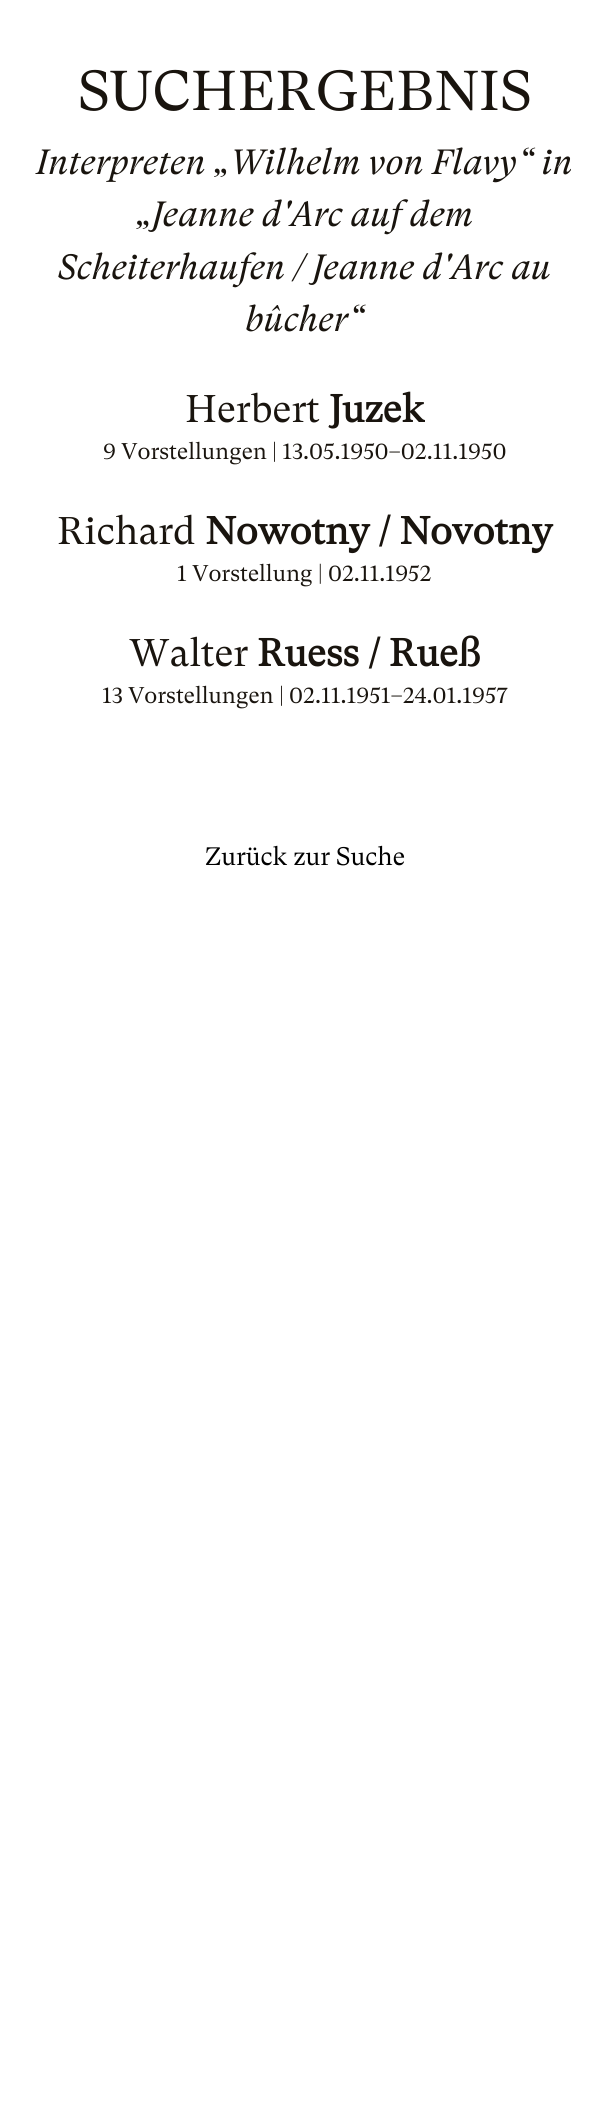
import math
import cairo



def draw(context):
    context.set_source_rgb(1, 1, 1)
    context.paint()
    context.select_font_face("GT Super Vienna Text")
    context.set_font_size(56)
    context.set_source_rgb(25 / 255, 20 / 255, 14 / 255)
    context.move_to(78, 110)
    context.show_text("SUCHERGEBNIS")
    context.select_font_face("GT Super Vienna Text", cairo.FontSlant.ITALIC)
    context.set_font_size(35)
    context.move_to(36, 174)
    context.show_text("Interpreten „Wilhelm von Flavy“ in")
    context.move_to(136, 226)
    context.show_text("„Jeanne d'Arc auf dem")
    context.move_to(58, 279)
    context.show_text("Scheiterhaufen / Jeanne d'Arc au")
    context.move_to(245, 331)
    context.show_text("bûcher“")
    context.select_font_face("GT Super Vienna Text")
    context.set_font_size(38.5)
    context.move_to(185, 422)
    context.show_text("Herbert")
    context.select_font_face("GT Super Vienna Text", cairo.FontSlant.NORMAL, cairo.FontWeight.BOLD)
    context.move_to(329, 422)
    context.show_text("Juzek")
    context.select_font_face("GT Super Vienna Text")
    context.set_font_size(22.7)
    context.move_to(103, 459)
    context.show_text("9 Vorstellungen | 13.05.1950–02.11.1950")
    context.set_font_size(38.5)
    context.move_to(57, 544)
    context.show_text("Richard")
    context.select_font_face("GT Super Vienna Text", cairo.FontSlant.NORMAL, cairo.FontWeight.BOLD)
    context.move_to(205, 544)
    context.show_text("Nowotny / Novotny")
    context.select_font_face("GT Super Vienna Text")
    context.set_font_size(22.7)
    context.move_to(177, 581)
    context.show_text("1 Vorstellung | 02.11.1952")
    context.set_font_size(38.5)
    context.move_to(129, 666)
    context.show_text("Walter")
    context.select_font_face("GT Super Vienna Text", cairo.FontSlant.NORMAL, cairo.FontWeight.BOLD)
    context.move_to(257, 666)
    context.show_text("Ruess / Rueß")
    context.select_font_face("GT Super Vienna Text")
    context.set_font_size(22.7)
    context.move_to(102, 703)
    context.show_text("13 Vorstellungen | 02.11.1951–24.01.1957")
    context.set_font_size(25.25)
    context.set_source_rgb(0, 0, 0)
    context.move_to(205, 865)
    context.show_text("Zurück zur Suche")


surface = cairo.ImageSurface(cairo.Format.RGB24, 608, 2119)
context = cairo.Context(surface)
options = cairo.FontOptions()
options.set_hint_metrics(cairo.HintMetrics.OFF)
options.set_hint_style(cairo.HintStyle.NONE)
context.set_font_options(options)
context.set_miter_limit(4)
draw(context)
surface.write_to_png("out.png")
